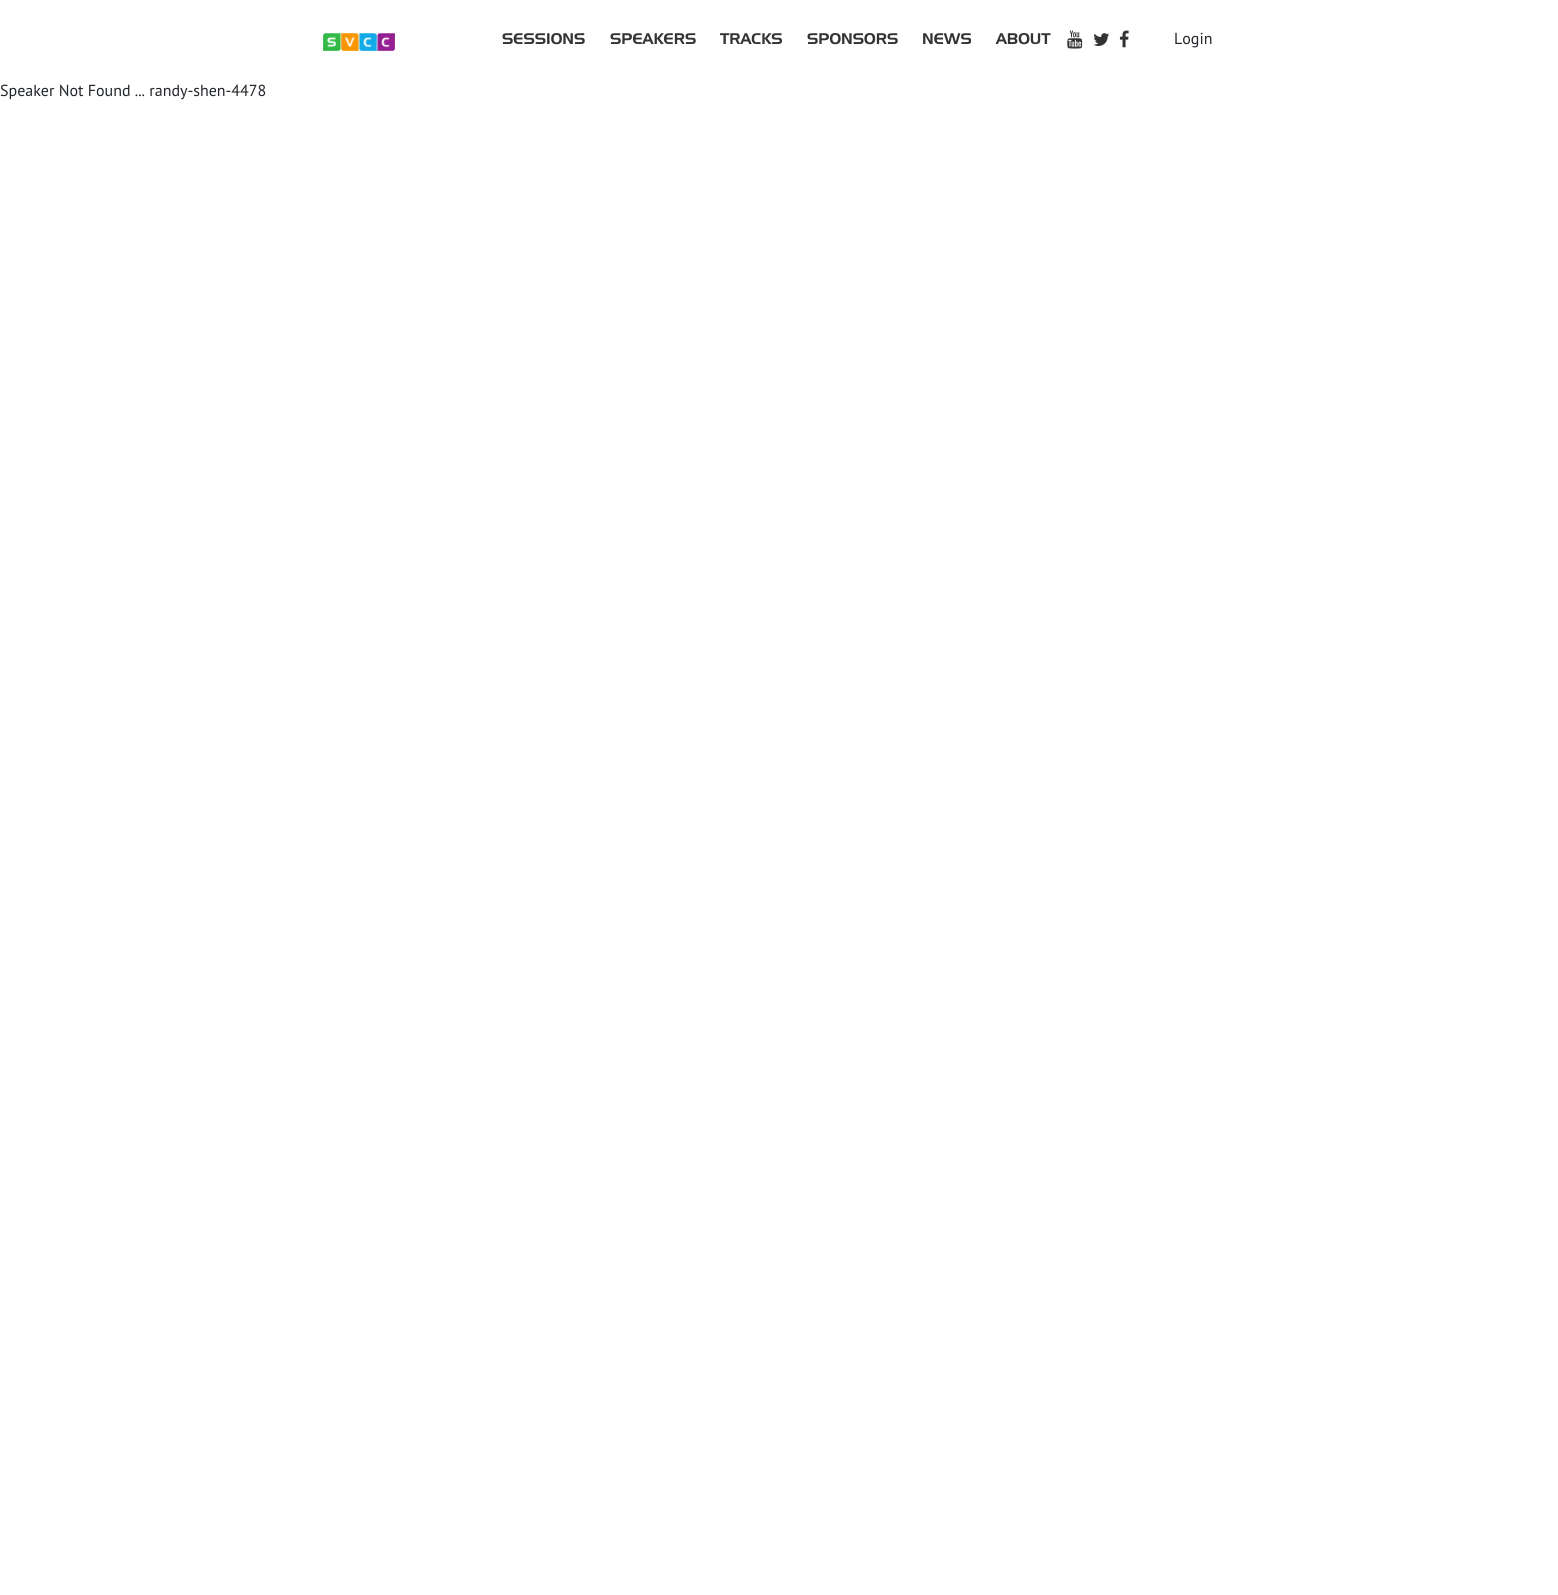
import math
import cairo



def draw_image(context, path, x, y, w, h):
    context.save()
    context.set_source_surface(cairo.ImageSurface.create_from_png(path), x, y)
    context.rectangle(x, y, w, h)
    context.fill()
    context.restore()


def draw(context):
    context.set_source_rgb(1, 1, 1)
    context.paint()
    draw_image(context, "images/1.png", 323, 33, 72, 18)
    draw_image(context, "images/2.png", 1067, 30, 16, 19)
    draw_image(context, "images/3.png", 1093, 33, 17, 13)
    draw_image(context, "images/4.png", 1119, 30, 10, 18)
    context.select_font_face("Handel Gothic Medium")
    context.set_font_size(15)
    context.set_source_rgb(51 / 255, 51 / 255, 51 / 255)
    context.move_to(502, 44)
    context.show_text("SESSIONS")
    context.move_to(610, 44)
    context.show_text("SPEAKERS")
    context.move_to(720, 44)
    context.show_text("TRACKS")
    context.move_to(807, 44)
    context.show_text("SPONSORS")
    context.move_to(922, 44)
    context.show_text("NEWS")
    context.move_to(996, 44)
    context.show_text("ABOUT")
    context.select_font_face("PT Sans")
    context.set_font_size(16)
    context.set_source_rgb(33 / 255, 37 / 255, 41 / 255)
    context.move_to(1174, 44)
    context.show_text("Login")
    context.move_to(0, 96)
    context.show_text("Speaker Not Found ... randy-shen-4478")


surface = cairo.ImageSurface(cairo.Format.RGB24, 1558, 1595)
context = cairo.Context(surface)
options = cairo.FontOptions()
options.set_hint_metrics(cairo.HintMetrics.OFF)
options.set_hint_style(cairo.HintStyle.NONE)
context.set_font_options(options)
context.set_miter_limit(4)
draw(context)
surface.write_to_png("out.png")
